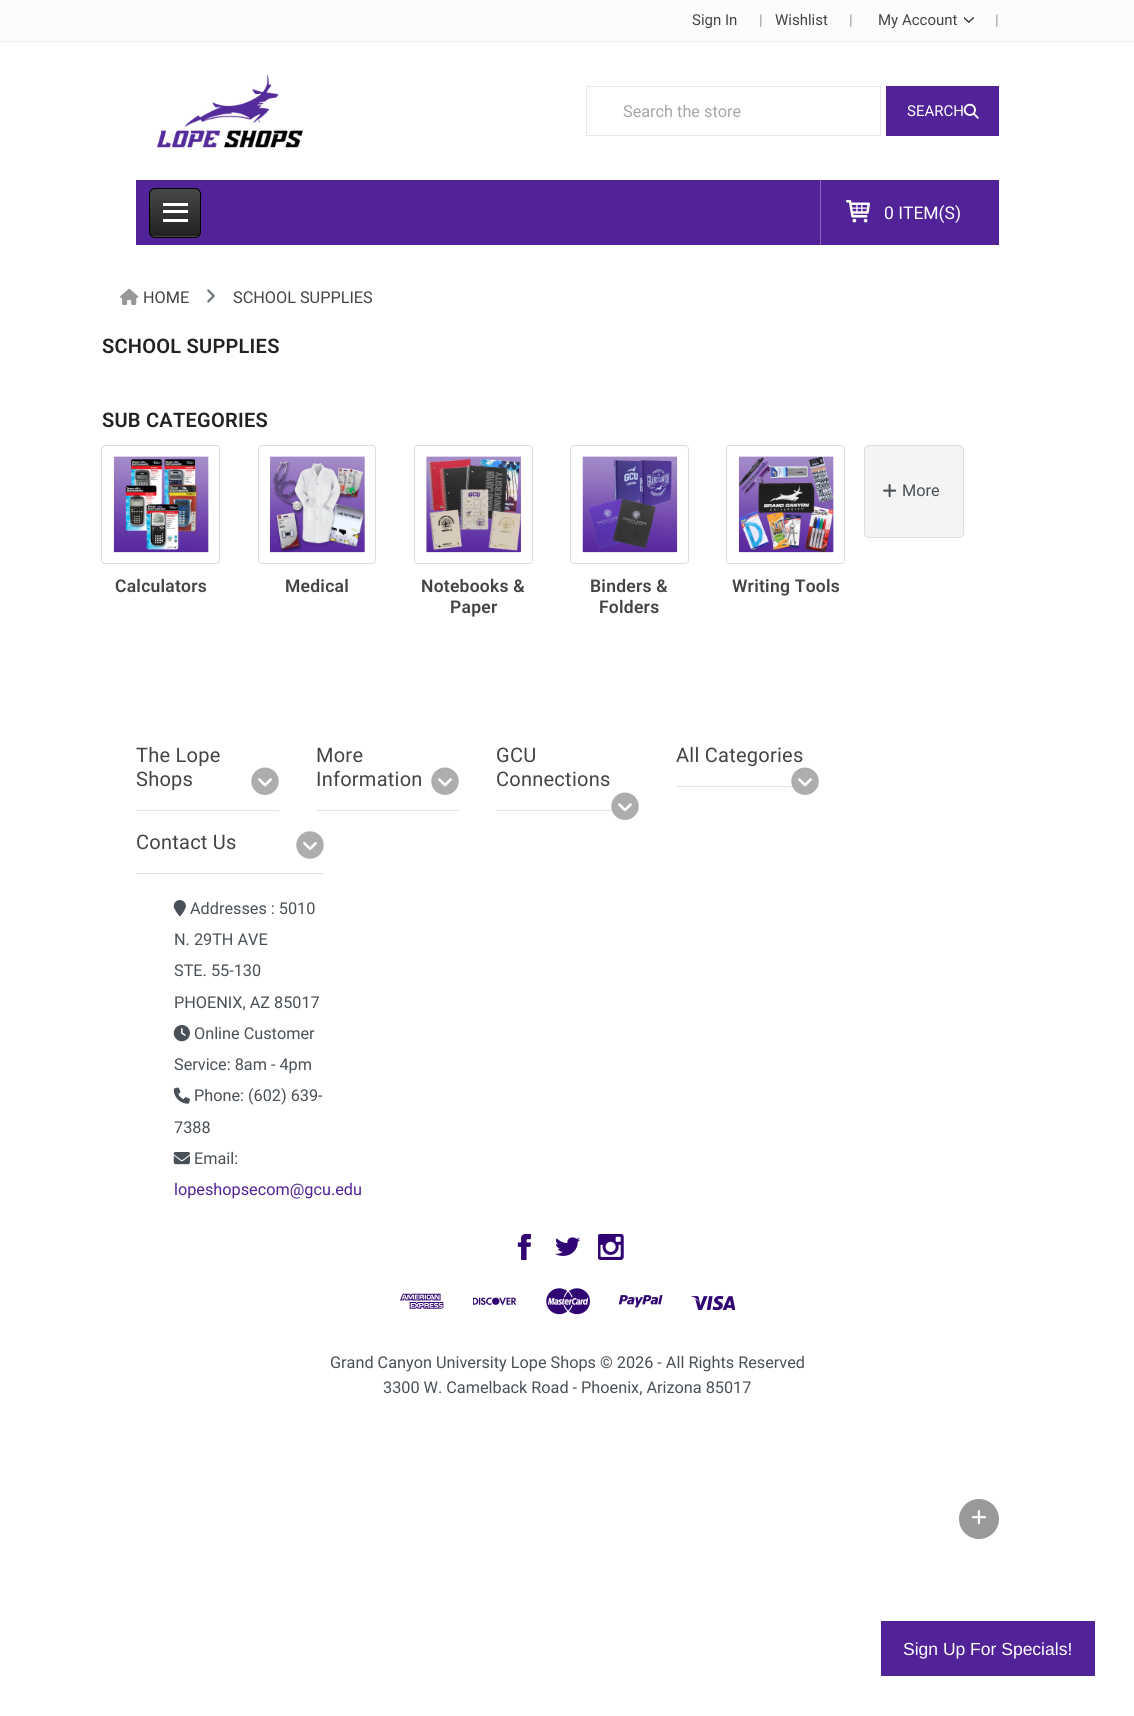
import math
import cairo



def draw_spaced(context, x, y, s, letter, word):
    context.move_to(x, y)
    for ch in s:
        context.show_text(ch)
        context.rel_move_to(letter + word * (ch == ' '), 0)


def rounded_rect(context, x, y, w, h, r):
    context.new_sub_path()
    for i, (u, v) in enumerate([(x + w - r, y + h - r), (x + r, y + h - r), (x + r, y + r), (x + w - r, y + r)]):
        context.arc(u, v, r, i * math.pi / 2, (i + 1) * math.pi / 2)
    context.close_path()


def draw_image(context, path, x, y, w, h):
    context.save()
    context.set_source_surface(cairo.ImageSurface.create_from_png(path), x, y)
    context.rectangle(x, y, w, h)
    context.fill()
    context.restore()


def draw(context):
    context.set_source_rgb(1, 1, 1)
    context.paint()
    context.set_source_rgb(252 / 255, 252 / 255, 252 / 255)
    context.rectangle(0, 0, 1134, 43)
    context.fill()
    context.set_source_rgb(243 / 255, 243 / 255, 243 / 255)
    context.rectangle(0, 41, 1134, 1)
    context.fill()
    draw_image(context, "images/1.png", 964, 17, 10, 6)
    draw_image(context, "images/2.png", 156, 74, 147, 74)
    context.rectangle(586.5, 86.5, 294, 49)
    context.set_source_rgb(230 / 255, 230 / 255, 230 / 255)
    context.set_line_width(1)
    context.stroke()
    context.set_source_rgb(82 / 255, 35 / 255, 152 / 255)
    context.rectangle(886, 86, 113, 50)
    context.fill()
    draw_image(context, "images/3.png", 963, 103, 16, 16)
    context.rectangle(136, 180, 863, 65)
    context.fill()
    context.save()
    rounded_rect(context, 149, 188, 52, 50, 6)
    context.clip()
    gradient = cairo.LinearGradient(175, 189, 175, 236)
    gradient.add_color_stop_rgba(0, 71 / 255, 71 / 255, 71 / 255, 1)
    gradient.add_color_stop_rgba(1, 33 / 255, 33 / 255, 33 / 255, 1)
    context.set_source(gradient)
    context.rectangle(149, 189, 52, 47)
    context.fill()
    gradient = cairo.LinearGradient(175, 236, 175, 284)
    gradient.add_color_stop_rgba(0, 71 / 255, 71 / 255, 71 / 255, 1)
    gradient.add_color_stop_rgba(1, 33 / 255, 33 / 255, 33 / 255, 1)
    context.set_source(gradient)
    context.rectangle(149, 236, 52, 2)
    context.fill()
    context.restore()
    rounded_rect(context, 149.5, 188.5, 51, 49, 5.5)
    context.set_source_rgb(0, 0, 0)
    context.stroke()
    context.set_source_rgb(1, 1, 1)
    context.rectangle(163, 210, 25, 3)
    context.fill()
    context.rectangle(163, 203, 25, 3)
    context.fill()
    context.rectangle(163, 219, 25, 3)
    context.fill()
    context.set_source_rgb(134 / 255, 101 / 255, 183 / 255)
    context.rectangle(820, 180, 1, 65)
    context.fill()
    draw_image(context, "images/4.png", 846, 200, 24, 23)
    draw_image(context, "images/5.png", 120, 288, 19, 17)
    draw_image(context, "images/6.png", 207, 289, 8, 14)
    context.set_source_rgb(244 / 255, 244 / 255, 244 / 255)
    rounded_rect(context, 864.5, 445.5, 99, 92, 4.5)
    context.fill_preserve()
    context.set_source_rgb(221 / 255, 221 / 255, 221 / 255)
    context.stroke()
    draw_image(context, "images/7.png", 883, 484, 14, 14)
    rounded_rect(context, 101.5, 445.5, 118, 118, 3.5)
    context.stroke()
    draw_image(context, "images/8.png", 113, 456, 96, 97)
    rounded_rect(context, 258.5, 445.5, 117, 118, 3.5)
    context.stroke()
    draw_image(context, "images/9.png", 270, 456, 95, 97)
    rounded_rect(context, 414.5, 445.5, 118, 118, 3.5)
    context.stroke()
    draw_image(context, "images/10.png", 426, 456, 95, 97)
    rounded_rect(context, 570.5, 445.5, 118, 118, 3.5)
    context.stroke()
    draw_image(context, "images/11.png", 582, 456, 96, 97)
    rounded_rect(context, 726.5, 445.5, 118, 118, 3.5)
    context.stroke()
    draw_image(context, "images/12.png", 738, 456, 96, 97)
    context.set_source_rgb(226 / 255, 226 / 255, 226 / 255)
    context.rectangle(136, 810, 143, 1)
    context.fill()
    draw_image(context, "images/13.png", 251, 767, 28, 28)
    context.rectangle(316, 810, 143, 1)
    context.fill()
    draw_image(context, "images/13.png", 431, 767, 28, 28)
    context.rectangle(496, 810, 143, 1)
    context.fill()
    draw_image(context, "images/14.png", 611, 792, 28, 28)
    context.rectangle(676, 786, 143, 1)
    context.fill()
    draw_image(context, "images/15.png", 791, 767, 28, 28)
    context.rectangle(136, 873, 188, 1)
    context.fill()
    draw_image(context, "images/16.png", 296, 831, 28, 28)
    draw_image(context, "images/17.png", 173, 900, 13, 17)
    draw_image(context, "images/18.png", 173, 1025, 17, 17)
    draw_image(context, "images/19.png", 173, 1087, 17, 17)
    draw_image(context, "images/20.png", 173, 1152, 17, 13)
    draw_image(context, "images/21.png", 517, 1234, 14, 26)
    draw_image(context, "images/22.png", 555, 1237, 25, 19)
    draw_image(context, "images/23.png", 598, 1234, 26, 26)
    draw_image(context, "images/24.png", 400, 1293, 44, 16)
    draw_image(context, "images/25.png", 473, 1297, 43, 8)
    draw_image(context, "images/26.png", 546, 1288, 44, 27)
    draw_image(context, "images/27.png", 619, 1295, 44, 13)
    draw_image(context, "images/28.png", 691, 1295, 44, 16)
    context.set_source_rgb(153 / 255, 153 / 255, 153 / 255)
    context.arc(979, 1519, 20, 0, 2 * math.pi)
    context.fill()
    draw_image(context, "images/29.png", 971, 1510, 15, 15)
    context.set_source_rgb(82 / 255, 35 / 255, 152 / 255)
    context.rectangle(881, 1621, 214, 55)
    context.fill()
    context.select_font_face("Roboto")
    context.set_font_size(15)
    context.set_source_rgb(68 / 255, 68 / 255, 68 / 255)
    context.move_to(692, 25)
    context.show_text("Sign In")
    context.set_source_rgb(153 / 255, 153 / 255, 153 / 255)
    context.move_to(759, 25)
    context.show_text("|")
    context.set_source_rgb(68 / 255, 68 / 255, 68 / 255)
    context.move_to(775, 25)
    context.show_text("Wishlist")
    context.set_source_rgb(153 / 255, 153 / 255, 153 / 255)
    context.move_to(849, 25)
    context.show_text("|")
    context.set_source_rgb(68 / 255, 68 / 255, 68 / 255)
    context.move_to(878, 25)
    context.show_text("My Account")
    context.set_source_rgb(153 / 255, 153 / 255, 153 / 255)
    context.move_to(995, 25)
    context.show_text("|")
    context.set_font_size(16.25)
    context.set_source_rgb(165 / 255, 165 / 255, 165 / 255)
    context.move_to(623, 117)
    context.show_text("Search the store")
    context.set_font_size(15)
    context.set_source_rgb(1, 1, 1)
    context.move_to(907, 116)
    context.show_text("SEARCH")
    context.set_font_size(17.5)
    context.move_to(884, 219)
    context.show_text("0 ITEM(S)")
    context.set_font_size(16.25)
    context.set_source_rgb(68 / 255, 68 / 255, 68 / 255)
    context.move_to(143, 303)
    context.show_text("HOME")
    context.move_to(233, 303)
    context.show_text("SCHOOL SUPPLIES")
    context.select_font_face("Roboto SemiBold")
    context.set_font_size(20)
    context.set_source_rgb(34 / 255, 34 / 255, 34 / 255)
    draw_spaced(context, 102, 353, "SCHOOL SUPPLIES", 0.25, 0)
    draw_spaced(context, 102, 427, "SUB CATEGORIES", 0.25, 0)
    context.select_font_face("Roboto")
    context.set_font_size(16.25)
    context.set_source_rgb(73 / 255, 80 / 255, 87 / 255)
    context.move_to(902, 496)
    context.show_text("More")
    context.select_font_face("Roboto SemiBold")
    context.set_font_size(17.5)
    context.set_source_rgb(68 / 255, 68 / 255, 68 / 255)
    draw_spaced(context, 115, 592, "Calculators", 0.25, 0)
    draw_spaced(context, 285, 592, "Medical", 0.25, 0)
    draw_spaced(context, 421, 592, "Notebooks &", 0.25, 0)
    draw_spaced(context, 450, 613, "Paper", 0.25, 0)
    draw_spaced(context, 590, 592, "Binders &", 0.25, 0)
    draw_spaced(context, 599, 613, "Folders", 0.25, 0)
    draw_spaced(context, 732, 592, "Writing Tools", 0.25, 0)
    context.select_font_face("Roboto")
    context.set_font_size(20)
    draw_spaced(context, 136, 762, "The Lope", 0.25, 0)
    draw_spaced(context, 136, 786, "Shops", 0.25, 0)
    draw_spaced(context, 316, 762, "More", 0.25, 0)
    draw_spaced(context, 316, 786, "Information", 0.25, 0)
    draw_spaced(context, 496, 762, "GCU", 0.25, 0)
    draw_spaced(context, 496, 786, "Connections", 0.25, 0)
    draw_spaced(context, 676, 762, "All Categories", 0.25, 0)
    draw_spaced(context, 136, 849, "Contact Us", 0.25, 0)
    context.set_font_size(16.25)
    context.set_source_rgb(73 / 255, 80 / 255, 87 / 255)
    context.move_to(190, 914)
    context.show_text("Addresses : 5010")
    context.move_to(174, 945)
    context.show_text("N. 29TH AVE")
    context.move_to(174, 976)
    context.show_text("STE. 55-130")
    context.move_to(174, 1008)
    context.show_text("PHOENIX, AZ 85017")
    context.move_to(194, 1039)
    context.show_text("Online Customer")
    context.move_to(174, 1070)
    context.show_text("Service: 8am - 4pm")
    context.move_to(194, 1101)
    context.show_text("Phone: (602) 639-")
    context.move_to(174, 1133)
    context.show_text("7388")
    context.move_to(194, 1164)
    context.show_text("Email:")
    context.set_source_rgb(82 / 255, 35 / 255, 152 / 255)
    context.move_to(174, 1195)
    context.show_text("lopeshopsecom@gcu.edu")
    context.set_source_rgb(73 / 255, 80 / 255, 87 / 255)
    context.move_to(330, 1368)
    context.show_text("Grand Canyon University Lope Shops © 2026 - All Rights Reserved")
    context.move_to(383, 1393)
    context.show_text("3300 W. Camelback Road - Phoenix, Arizona 85017")
    context.select_font_face("Liberation Sans")
    context.set_font_size(17.5)
    context.set_source_rgb(1, 1, 1)
    context.move_to(903, 1655)
    context.show_text("Sign Up For Specials!")


surface = cairo.ImageSurface(cairo.Format.RGB24, 1134, 1716)
context = cairo.Context(surface)
options = cairo.FontOptions()
options.set_hint_metrics(cairo.HintMetrics.OFF)
options.set_hint_style(cairo.HintStyle.NONE)
context.set_font_options(options)
context.set_miter_limit(4)
draw(context)
surface.write_to_png("out.png")
